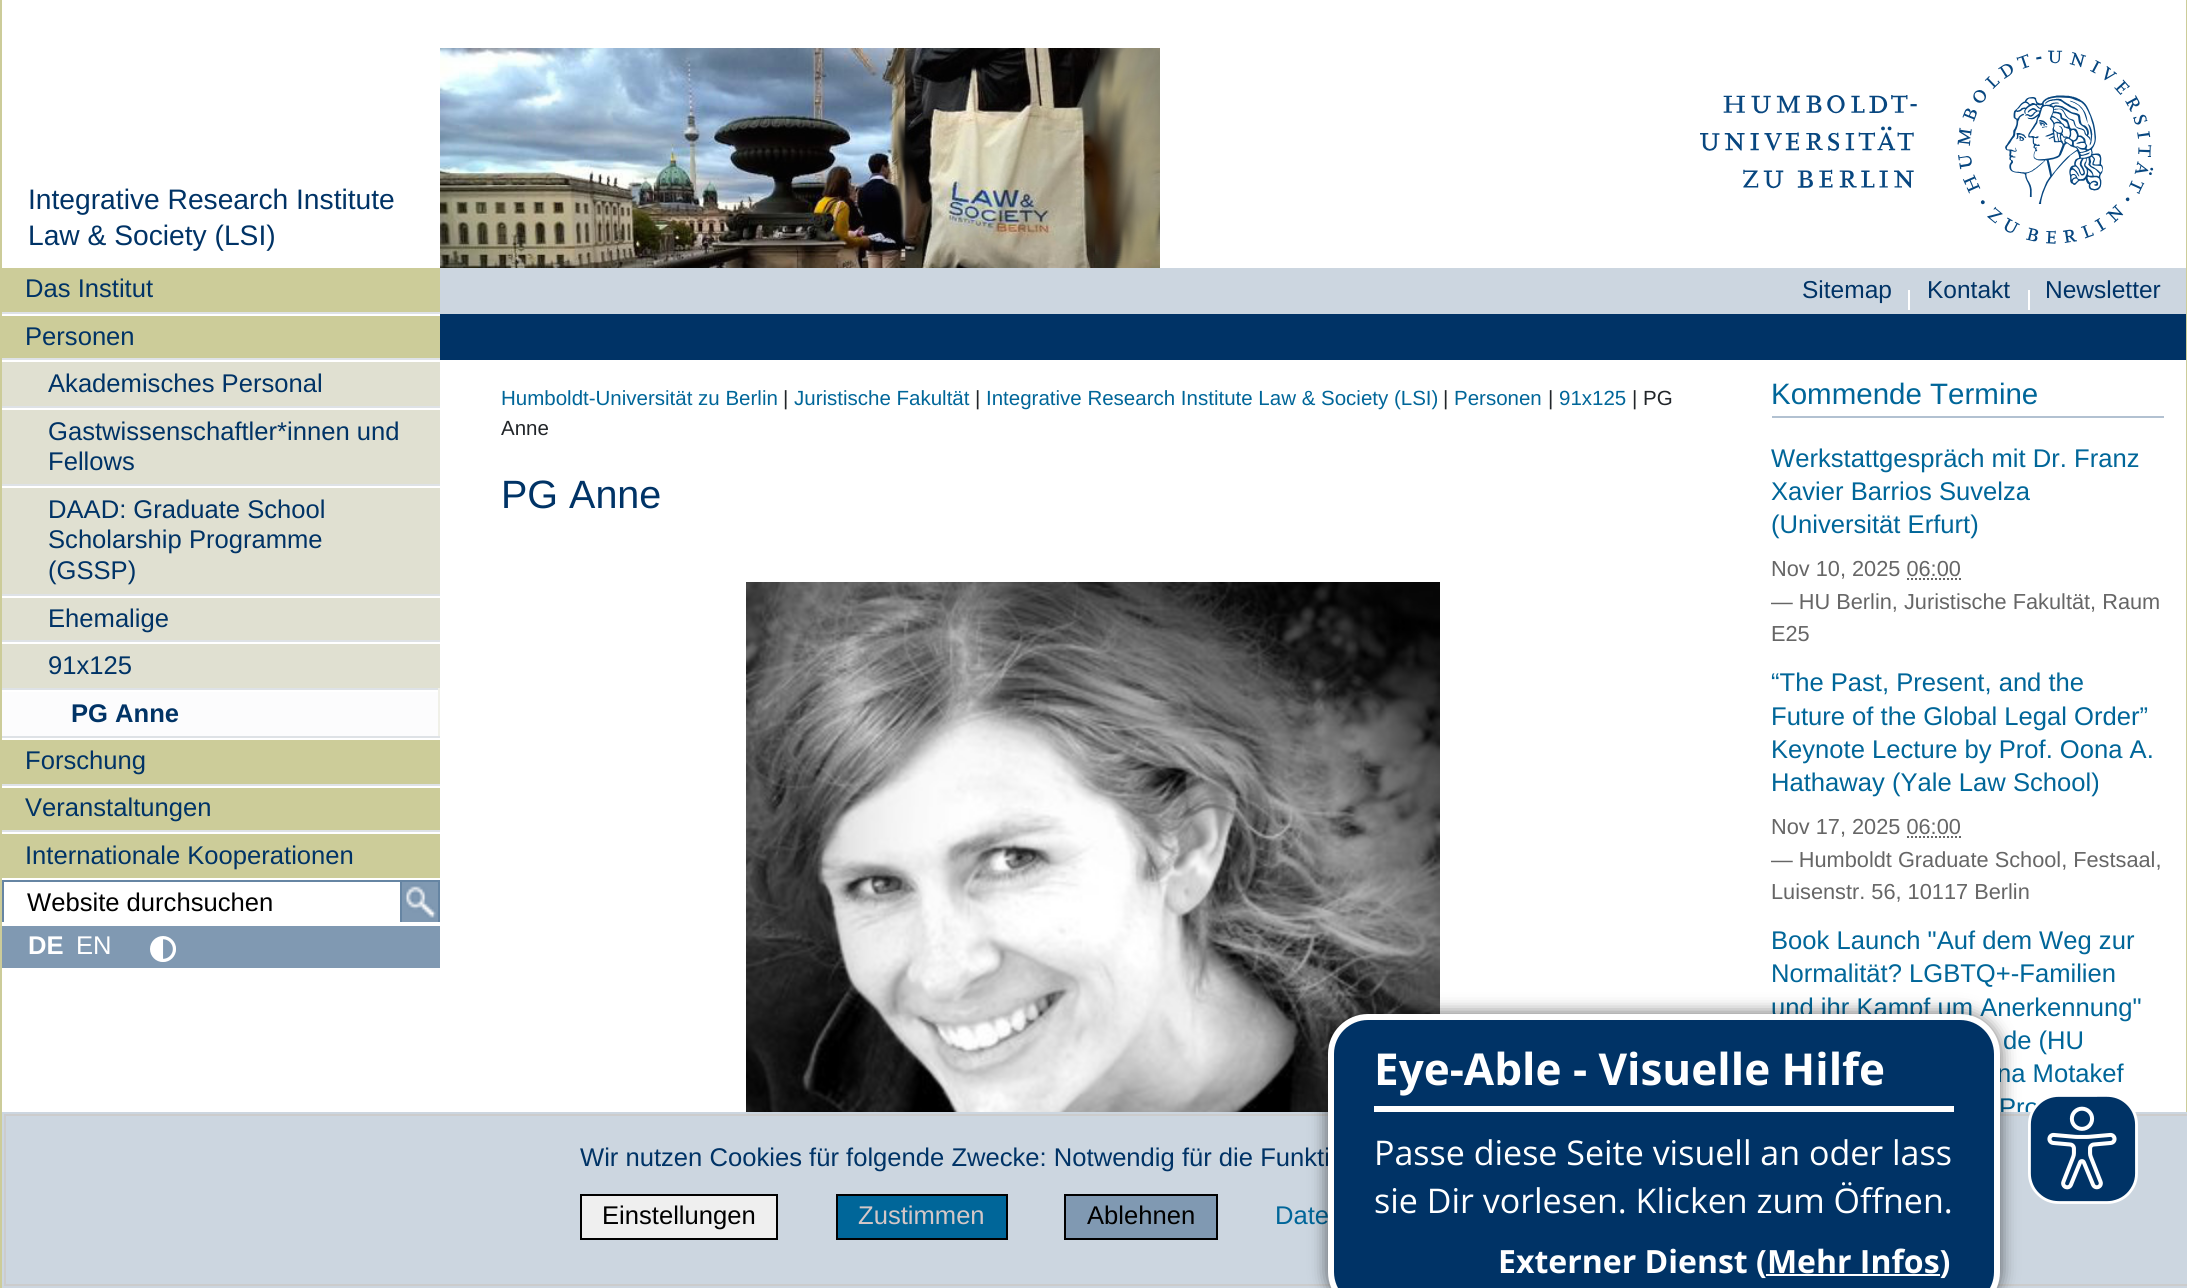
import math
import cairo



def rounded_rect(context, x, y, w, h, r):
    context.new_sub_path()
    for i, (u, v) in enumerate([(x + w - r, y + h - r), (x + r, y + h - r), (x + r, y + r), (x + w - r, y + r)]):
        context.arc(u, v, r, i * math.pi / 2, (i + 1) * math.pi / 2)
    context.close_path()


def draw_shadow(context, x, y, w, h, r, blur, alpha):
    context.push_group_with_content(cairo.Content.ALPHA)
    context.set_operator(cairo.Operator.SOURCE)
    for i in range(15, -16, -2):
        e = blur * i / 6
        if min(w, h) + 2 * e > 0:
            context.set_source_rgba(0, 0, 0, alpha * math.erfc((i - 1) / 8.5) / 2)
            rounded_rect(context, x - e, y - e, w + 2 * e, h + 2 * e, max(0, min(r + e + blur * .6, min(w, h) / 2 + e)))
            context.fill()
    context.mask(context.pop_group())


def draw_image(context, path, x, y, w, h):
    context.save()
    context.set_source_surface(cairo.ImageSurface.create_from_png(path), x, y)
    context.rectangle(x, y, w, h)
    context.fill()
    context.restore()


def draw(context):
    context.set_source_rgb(1, 1, 1)
    context.paint()
    draw_image(context, "images/1.png", 440, 48, 720, 220)
    draw_image(context, "images/2.png", 1700, 50, 454, 194)
    context.set_source_rgb(204 / 255, 204 / 255, 153 / 255)
    context.rectangle(2186, 0, 1, 1112)
    context.fill()
    context.rectangle(0, 0, 2, 1288)
    context.fill()
    context.rectangle(2, 268, 438, 44)
    context.fill()
    context.rectangle(2, 316, 438, 42)
    context.fill()
    context.set_source_rgb(222 / 255, 226 / 255, 230 / 255)
    context.rectangle(2, 312, 438, 2)
    context.fill()
    context.set_source_rgb(224 / 255, 224 / 255, 209 / 255)
    context.rectangle(2, 362, 438, 44)
    context.fill()
    context.set_source_rgb(222 / 255, 226 / 255, 230 / 255)
    context.rectangle(2, 358, 438, 2)
    context.fill()
    context.set_source_rgb(224 / 255, 224 / 255, 209 / 255)
    context.rectangle(2, 410, 438, 74)
    context.fill()
    context.set_source_rgb(222 / 255, 226 / 255, 230 / 255)
    context.rectangle(2, 406, 438, 2)
    context.fill()
    context.set_source_rgb(224 / 255, 224 / 255, 209 / 255)
    context.rectangle(2, 488, 438, 106)
    context.fill()
    context.set_source_rgb(222 / 255, 226 / 255, 230 / 255)
    context.rectangle(2, 484, 438, 2)
    context.fill()
    context.set_source_rgb(224 / 255, 224 / 255, 209 / 255)
    context.rectangle(2, 598, 438, 42)
    context.fill()
    context.set_source_rgb(222 / 255, 226 / 255, 230 / 255)
    context.rectangle(2, 594, 438, 2)
    context.fill()
    context.set_source_rgb(224 / 255, 224 / 255, 209 / 255)
    context.rectangle(2, 644, 438, 44)
    context.fill()
    context.set_source_rgb(222 / 255, 226 / 255, 230 / 255)
    context.rectangle(2, 640, 438, 2)
    context.fill()
    context.rectangle(2, 688, 438, 2)
    context.fill()
    context.set_source_rgb(240 / 255, 240 / 255, 232 / 255)
    context.rectangle(438, 688, 2, 48)
    context.fill()
    context.set_source_rgb(252 / 255, 252 / 255, 253 / 255)
    context.rectangle(2, 692, 436, 44)
    context.fill()
    context.set_source_rgb(204 / 255, 204 / 255, 153 / 255)
    context.rectangle(2, 740, 438, 44)
    context.fill()
    context.set_source_rgb(222 / 255, 226 / 255, 230 / 255)
    context.rectangle(2, 736, 438, 2)
    context.fill()
    context.set_source_rgb(204 / 255, 204 / 255, 153 / 255)
    context.rectangle(2, 788, 438, 42)
    context.fill()
    context.set_source_rgb(222 / 255, 226 / 255, 230 / 255)
    context.rectangle(2, 784, 438, 2)
    context.fill()
    context.set_source_rgb(204 / 255, 204 / 255, 153 / 255)
    context.rectangle(2, 834, 438, 44)
    context.fill()
    context.set_source_rgb(222 / 255, 226 / 255, 230 / 255)
    context.rectangle(2, 830, 438, 2)
    context.fill()
    context.save()
    context.rectangle(2, 880, 462, 42)
    context.clip()
    context.rectangle(3, 881, 436, 42)
    context.set_source_rgb(102 / 255, 133 / 255, 163 / 255)
    context.stroke()
    context.rectangle(401, 881, 38, 42)
    context.stroke()
    context.restore()
    draw_image(context, "images/3.png", 402, 882, 36, 40)
    context.set_source_rgb(128 / 255, 153 / 255, 178 / 255)
    context.rectangle(2, 926, 438, 42)
    context.fill()
    draw_image(context, "images/4.png", 150, 936, 26, 26)
    context.set_source_rgb(204 / 255, 214 / 255, 224 / 255)
    context.rectangle(440, 268, 1746, 46)
    context.fill()
    context.set_source_rgb(1, 1, 1)
    context.rectangle(1908, 290, 2, 20)
    context.fill()
    context.rectangle(2028, 290, 2, 20)
    context.fill()
    context.set_source_rgb(0, 51 / 255, 102 / 255)
    context.rectangle(440, 314, 1746, 46)
    context.fill()
    draw_image(context, "images/5.png", 746, 582, 694, 530)
    context.set_source_rgb(178 / 255, 193 / 255, 209 / 255)
    context.rectangle(1772, 416, 392, 2)
    context.fill()
    context.new_path()
    context.move_to(1907, 579)
    context.line_to(1961, 579)
    context.set_source_rgb(102 / 255, 102 / 255, 102 / 255)
    context.set_dash([2, 2])
    context.stroke()
    context.new_path()
    context.move_to(1907, 837)
    context.line_to(1961, 837)
    context.stroke()
    context.select_font_face("Liberation Sans")
    context.set_font_size(28.2)
    context.set_source_rgb(0, 51 / 255, 102 / 255)
    context.move_to(28, 209)
    context.show_text("Integrative Research Institute")
    context.move_to(28, 245)
    context.show_text("Law & Society (LSI)")
    context.set_font_size(25.6)
    context.move_to(25, 297)
    context.show_text("Das Institut")
    context.move_to(25, 345)
    context.show_text("Personen")
    context.move_to(48, 392)
    context.show_text("Akademisches Personal")
    context.move_to(48, 440)
    context.show_text("Gastwissenschaftler*innen und")
    context.move_to(48, 470)
    context.show_text("Fellows")
    context.move_to(48, 518)
    context.show_text("DAAD: Graduate School")
    context.move_to(48, 548)
    context.show_text("Scholarship Programme")
    context.move_to(48, 579)
    context.show_text("(GSSP)")
    context.move_to(48, 627)
    context.show_text("Ehemalige")
    context.move_to(48, 674)
    context.show_text("91x125")
    context.select_font_face("Liberation Sans", cairo.FontSlant.NORMAL, cairo.FontWeight.BOLD)
    context.move_to(71, 722)
    context.show_text("PG Anne")
    context.select_font_face("Liberation Sans")
    context.move_to(25, 769)
    context.show_text("Forschung")
    context.move_to(25, 816)
    context.show_text("Veranstaltungen")
    context.move_to(25, 864)
    context.show_text("Internationale Kooperationen")
    context.set_source_rgb(0, 0, 0)
    context.move_to(27, 911)
    context.show_text("Website durchsuchen")
    context.select_font_face("Liberation Sans", cairo.FontSlant.NORMAL, cairo.FontWeight.BOLD)
    context.set_source_rgb(1, 1, 1)
    context.move_to(28, 954)
    context.show_text("DE")
    context.select_font_face("Liberation Sans")
    context.move_to(76, 954)
    context.show_text("EN")
    context.set_font_size(24.5)
    context.set_source_rgb(0, 51 / 255, 102 / 255)
    context.move_to(1802, 298)
    context.show_text("Sitemap")
    context.move_to(1927, 298)
    context.show_text("Kontakt")
    context.move_to(2045, 298)
    context.show_text("Newsletter")
    context.set_font_size(20.5)
    context.set_source_rgb(0, 102 / 255, 153 / 255)
    context.move_to(501, 405)
    context.show_text("Humboldt-Universität zu Berlin")
    context.set_source_rgb(33 / 255, 37 / 255, 41 / 255)
    context.move_to(783, 405)
    context.show_text("|")
    context.set_source_rgb(0, 102 / 255, 153 / 255)
    context.move_to(794, 405)
    context.show_text("Juristische Fakultät")
    context.set_source_rgb(33 / 255, 37 / 255, 41 / 255)
    context.move_to(975, 405)
    context.show_text("|")
    context.set_source_rgb(0, 102 / 255, 153 / 255)
    context.move_to(986, 405)
    context.show_text("Integrative Research Institute Law & Society (LSI)")
    context.set_source_rgb(33 / 255, 37 / 255, 41 / 255)
    context.move_to(1443, 405)
    context.show_text("|")
    context.set_source_rgb(0, 102 / 255, 153 / 255)
    context.move_to(1454, 405)
    context.show_text("Personen")
    context.set_source_rgb(33 / 255, 37 / 255, 41 / 255)
    context.move_to(1548, 405)
    context.show_text("|")
    context.set_source_rgb(0, 102 / 255, 153 / 255)
    context.move_to(1559, 405)
    context.show_text("91x125")
    context.set_source_rgb(33 / 255, 37 / 255, 41 / 255)
    context.move_to(1632, 405)
    context.show_text("| PG")
    context.move_to(501, 435)
    context.show_text("Anne")
    context.set_font_size(39.5)
    context.set_source_rgb(0, 51 / 255, 102 / 255)
    context.move_to(501, 508)
    context.show_text("PG Anne")
    context.set_font_size(29.5)
    context.set_source_rgb(0, 102 / 255, 153 / 255)
    context.move_to(1771, 404)
    context.show_text("Kommende Termine")
    context.set_font_size(25.6)
    context.move_to(1771, 467)
    context.show_text("Werkstattgespräch mit Dr. Franz")
    context.move_to(1771, 500)
    context.show_text("Xavier Barrios Suvelza")
    context.move_to(1771, 533)
    context.show_text("(Universität Erfurt)")
    context.set_font_size(21.75)
    context.set_source_rgb(102 / 255, 102 / 255, 102 / 255)
    context.move_to(1771, 576)
    context.show_text("Nov 10, 2025 06:00")
    context.move_to(1771, 609)
    context.show_text("— HU Berlin, Juristische Fakultät, Raum")
    context.move_to(1771, 641)
    context.show_text("E25")
    context.set_font_size(25.6)
    context.set_source_rgb(0, 102 / 255, 153 / 255)
    context.move_to(1771, 691)
    context.show_text("“The Past, Present, and the")
    context.move_to(1771, 725)
    context.show_text("Future of the Global Legal Order”")
    context.move_to(1771, 758)
    context.show_text("Keynote Lecture by Prof. Oona A.")
    context.move_to(1771, 791)
    context.show_text("Hathaway (Yale Law School)")
    context.set_font_size(21.75)
    context.set_source_rgb(102 / 255, 102 / 255, 102 / 255)
    context.move_to(1771, 834)
    context.show_text("Nov 17, 2025 06:00")
    context.move_to(1771, 867)
    context.show_text("— Humboldt Graduate School, Festsaal,")
    context.move_to(1771, 899)
    context.show_text("Luisenstr. 56, 10117 Berlin")
    context.set_font_size(25.6)
    context.set_source_rgb(0, 102 / 255, 153 / 255)
    context.move_to(1771, 949)
    context.show_text("Book Launch \"Auf dem Weg zur")
    context.move_to(1771, 982)
    context.show_text("Normalität? LGBTQ+-Familien")
    context.move_to(1771, 1016)
    context.show_text("und ihr Kampf um Anerkennung\"")
    context.move_to(2003, 1049)
    context.show_text("de (HU")
    context.move_to(1997, 1082)
    context.show_text("na Motakef")
    context.move_to(1999, 1116)
    context.show_text("Pro")
    context.rectangle(3, 1113, 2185, 174)
    context.set_source_rgb(204 / 255, 214 / 255, 224 / 255)
    context.set_dash([])
    context.stroke()
    context.rectangle(5, 1115, 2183, 170)
    context.fill_preserve()
    context.set_source_rgb(204 / 255, 204 / 255, 204 / 255)
    context.stroke()
    context.set_source_rgb(0, 51 / 255, 102 / 255)
    context.move_to(580, 1166)
    context.show_text("Wir nutzen Cookies für folgende Zwecke: Notwendig für die Funkti")
    context.set_source_rgb(239 / 255, 239 / 255, 239 / 255)
    context.rectangle(581, 1195, 196, 44)
    context.fill_preserve()
    context.set_source_rgb(0, 0, 0)
    context.stroke()
    context.move_to(602, 1224)
    context.show_text("Einstellungen")
    context.set_source_rgb(0, 102 / 255, 153 / 255)
    context.rectangle(837, 1195, 170, 44)
    context.fill_preserve()
    context.set_source_rgb(0, 0, 0)
    context.stroke()
    context.set_source_rgb(213 / 255, 199 / 255, 199 / 255)
    context.move_to(858, 1224)
    context.show_text("Zustimmen")
    context.set_source_rgb(128 / 255, 153 / 255, 178 / 255)
    context.rectangle(1065, 1195, 152, 44)
    context.fill_preserve()
    context.set_source_rgb(0, 0, 0)
    context.stroke()
    context.move_to(1087, 1224)
    context.show_text("Ablehnen")
    context.set_source_rgb(0, 102 / 255, 153 / 255)
    context.move_to(1275, 1224)
    context.show_text("Date")
    context.set_source_rgb(0, 0, 0)
    draw_shadow(context, 1326, 1012, 676, 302, 42, 8, 0.5)
    context.set_source_rgb(0, 51 / 255, 102 / 255)
    rounded_rect(context, 1331, 1017, 666, 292, 37)
    context.fill_preserve()
    context.set_source_rgb(1, 1, 1)
    context.set_line_width(6)
    context.stroke()
    context.rectangle(1374, 1106, 580, 6)
    context.fill()
    context.select_font_face("Open Sans", cairo.FontSlant.NORMAL, cairo.FontWeight.BOLD)
    context.set_font_size(44)
    context.move_to(1374, 1085)
    context.show_text("Eye-Able - Visuelle Hilfe")
    context.select_font_face("Open Sans")
    context.set_font_size(34)
    context.move_to(1374, 1165)
    context.show_text("Passe diese Seite visuell an oder lass")
    context.move_to(1374, 1213)
    context.show_text("sie Dir vorlesen. Klicken zum Öffnen.")
    context.select_font_face("Open Sans", cairo.FontSlant.NORMAL, cairo.FontWeight.BOLD)
    context.set_font_size(32)
    context.move_to(1498, 1273)
    context.show_text("Externer Dienst (Mehr Infos)")
    context.rectangle(1766, 1274, 174, 2)
    context.fill()
    draw_image(context, "images/6.png", 2028, 1096, 110, 108)


surface = cairo.ImageSurface(cairo.Format.RGB24, 2187, 1288)
context = cairo.Context(surface)
options = cairo.FontOptions()
options.set_hint_metrics(cairo.HintMetrics.OFF)
options.set_hint_style(cairo.HintStyle.NONE)
context.set_font_options(options)
context.set_miter_limit(4)
draw(context)
surface.write_to_png("out.png")
